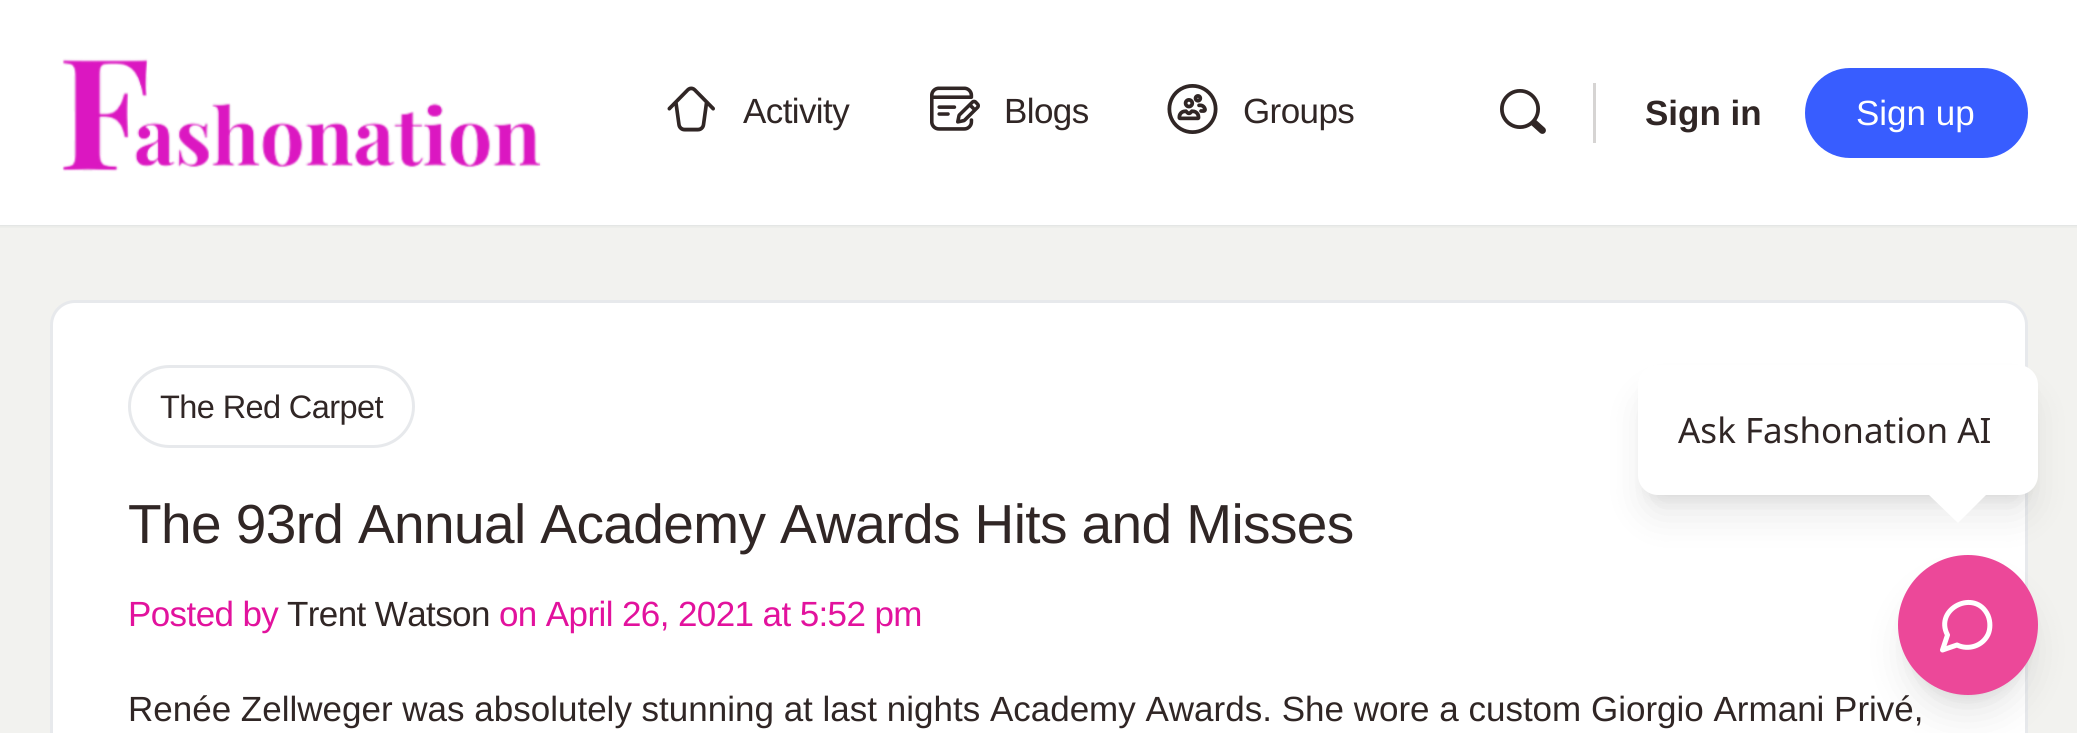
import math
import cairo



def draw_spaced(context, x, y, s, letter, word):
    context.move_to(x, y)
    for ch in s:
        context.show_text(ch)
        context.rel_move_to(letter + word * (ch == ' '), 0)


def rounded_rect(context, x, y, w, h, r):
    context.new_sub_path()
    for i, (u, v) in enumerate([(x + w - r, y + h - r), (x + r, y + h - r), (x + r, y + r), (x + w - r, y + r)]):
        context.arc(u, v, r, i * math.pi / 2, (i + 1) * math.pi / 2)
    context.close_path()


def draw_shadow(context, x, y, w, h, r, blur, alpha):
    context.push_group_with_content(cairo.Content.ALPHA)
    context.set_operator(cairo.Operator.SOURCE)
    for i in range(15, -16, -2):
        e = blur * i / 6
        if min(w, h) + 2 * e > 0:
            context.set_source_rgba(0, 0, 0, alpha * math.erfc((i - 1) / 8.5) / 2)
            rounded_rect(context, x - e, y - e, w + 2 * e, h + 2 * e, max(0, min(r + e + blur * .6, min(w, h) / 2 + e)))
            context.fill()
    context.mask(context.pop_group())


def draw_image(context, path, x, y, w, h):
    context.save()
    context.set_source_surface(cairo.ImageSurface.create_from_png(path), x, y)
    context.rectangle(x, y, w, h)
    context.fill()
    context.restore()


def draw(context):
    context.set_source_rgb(242 / 255, 242 / 255, 239 / 255)
    context.paint()
    context.set_source_rgb(65 / 255, 71 / 255, 108 / 255)
    draw_shadow(context, 0, 0, 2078, 225, 0, 1, 0.15)
    context.set_source_rgba(139 / 255, 141 / 255, 157 / 255, 0.05)
    context.new_path()
    context.move_to(0, 225)
    context.line_to(0, 228)
    context.line_to(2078, 228)
    context.line_to(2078, 3)
    context.line_to(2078, 225)
    context.close_path()
    context.fill()
    context.set_source_rgb(1, 1, 1)
    context.rectangle(0, 0, 2077, 225)
    context.fill()
    draw_image(context, "images/1.png", 62, 58, 480, 114)
    draw_image(context, "images/2.png", 667, 86, 48, 46)
    draw_image(context, "images/3.png", 930, 86, 50, 45)
    draw_image(context, "images/4.png", 1167, 84, 51, 50)
    draw_image(context, "images/5.png", 1500, 89, 46, 45)
    context.set_source_rgb(214 / 255, 212 / 255, 211 / 255)
    context.rectangle(1593, 83, 3, 60)
    context.fill()
    context.set_source_rgb(56 / 255, 93 / 255, 1)
    rounded_rect(context, 1806.5, 69.5, 220, 87, 43.5)
    context.fill_preserve()
    context.set_line_width(3)
    context.stroke()
    context.set_source_rgb(1, 1, 1)
    context.new_path()
    context.move_to(75, 301.5)
    context.line_to(2003, 301.5)
    context.curve_to(2016, 301.5, 2026.5, 312, 2026.5, 325)
    context.line_to(2026.5, 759.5)
    context.line_to(51.5, 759.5)
    context.line_to(51.5, 325)
    context.curve_to(51.5, 312, 62, 301.5, 75, 301.5)
    context.close_path()
    context.fill_preserve()
    context.set_source_rgb(231 / 255, 233 / 255, 236 / 255)
    context.stroke()
    rounded_rect(context, 129.5, 366.5, 284, 80, 40)
    context.stroke()
    context.set_source_rgb(0, 0, 0)
    draw_shadow(context, 1648, 385, 380, 110, 10, 7.5, 0.1)
    draw_shadow(context, 1908, 575, 120, 120, 60, 7.5, 0.1)
    draw_shadow(context, 1905, 588, 125, 125, 62.5, 19, 0.1)
    context.set_source_rgb(236 / 255, 72 / 255, 153 / 255)
    context.arc(1968, 625, 70, 0, 2 * math.pi)
    context.fill()
    context.set_source_rgb(0, 0, 0)
    draw_shadow(context, 1645, 398, 385, 115, 13, 19, 0.1)
    context.set_source_rgb(1, 1, 1)
    rounded_rect(context, 1638, 365, 400, 130, 20)
    context.fill()
    context.new_path()
    context.move_to(1958, 467)
    context.line_to(1986, 495)
    context.line_to(1958, 523)
    context.line_to(1929, 495)
    context.close_path()
    context.fill()
    context.new_path()
    context.move_to(1957, 645)
    context.curve_to(1968.5, 650.5, 1982.5, 646, 1988, 634.5)
    context.curve_to(1990.5, 629, 1990.5, 621.5, 1988, 615.5)
    context.curve_to(1975.5, 588, 1933.5, 608.5, 1947.5, 635)
    context.line_to(1942.5, 650)
    context.close_path()
    context.set_line_width(5)
    context.set_line_cap(cairo.LineCap.ROUND)
    context.set_line_join(cairo.LineJoin.ROUND)
    context.stroke()
    context.select_font_face("Liberation Sans")
    context.set_font_size(35)
    context.set_source_rgb(48 / 255, 38 / 255, 37 / 255)
    draw_spaced(context, 743, 123, "Activity", -0.6, 0)
    draw_spaced(context, 1004, 123, "Blogs", -0.6, 0)
    draw_spaced(context, 1243, 123, "Groups", -0.6, 0)
    context.select_font_face("Liberation Sans", cairo.FontSlant.NORMAL, cairo.FontWeight.BOLD)
    context.move_to(1645, 125)
    context.show_text("Sign in")
    context.select_font_face("Liberation Sans")
    context.set_source_rgb(1, 1, 1)
    context.move_to(1856, 125)
    context.show_text("Sign up")
    context.set_font_size(32.5)
    context.set_source_rgb(48 / 255, 38 / 255, 37 / 255)
    draw_spaced(context, 160, 418, "The Red Carpet", -0.6, 0)
    context.set_font_size(55)
    draw_spaced(context, 128, 543, "The 93rd Annual Academy Awards Hits and Misses", -0.6, 0)
    context.set_font_size(35)
    context.set_source_rgb(226 / 255, 18 / 255, 157 / 255)
    draw_spaced(context, 128, 626, "Posted by", -0.6, 0)
    context.set_source_rgb(48 / 255, 38 / 255, 37 / 255)
    draw_spaced(context, 287, 626, "Trent Watson", -0.6, 0)
    context.set_source_rgb(226 / 255, 18 / 255, 157 / 255)
    draw_spaced(context, 499, 626, "on April 26, 2021 at 5:52 pm", -0.6, 0)
    context.set_source_rgb(48 / 255, 38 / 255, 37 / 255)
    context.move_to(128, 721)
    context.show_text("Renée Zellweger was absolutely stunning at last nights Academy Awards. She wore a custom Giorgio Armani Privé,")
    context.select_font_face("Noto Sans")
    context.move_to(1678, 443)
    context.show_text("Ask Fashonation AI")


surface = cairo.ImageSurface(cairo.Format.RGB24, 2077, 733)
context = cairo.Context(surface)
options = cairo.FontOptions()
options.set_hint_metrics(cairo.HintMetrics.OFF)
options.set_hint_style(cairo.HintStyle.NONE)
context.set_font_options(options)
context.set_miter_limit(4)
draw(context)
surface.write_to_png("out.png")
